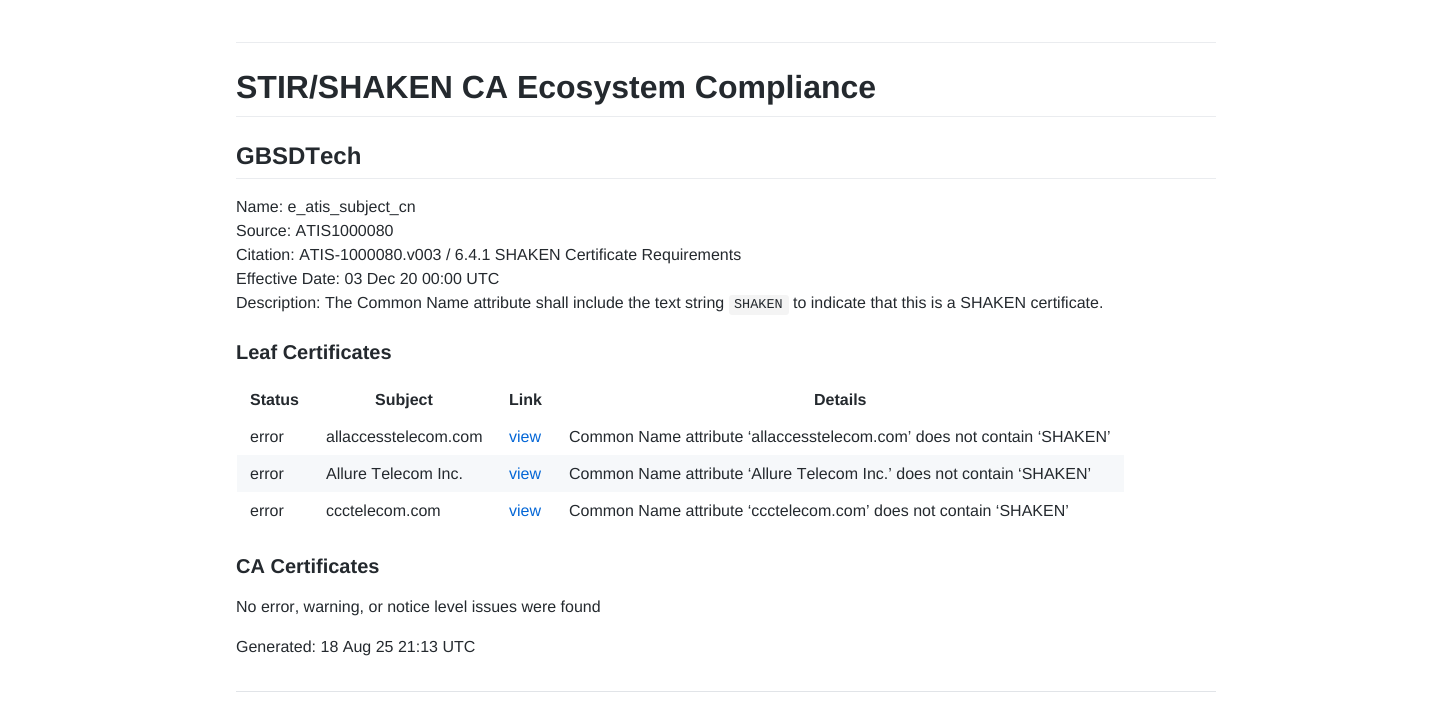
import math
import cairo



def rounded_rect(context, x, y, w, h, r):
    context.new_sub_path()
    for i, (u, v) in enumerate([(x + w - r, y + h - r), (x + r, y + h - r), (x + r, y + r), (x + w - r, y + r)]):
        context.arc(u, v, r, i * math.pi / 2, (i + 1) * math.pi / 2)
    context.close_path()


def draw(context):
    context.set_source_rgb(1, 1, 1)
    context.paint()
    context.set_source_rgb(234 / 255, 236 / 255, 239 / 255)
    context.rectangle(236, 42, 980, 1)
    context.fill()
    context.rectangle(236, 116, 980, 1)
    context.fill()
    context.rectangle(236, 178, 980, 1)
    context.fill()
    context.set_source_rgb(244 / 255, 244 / 255, 244 / 255)
    rounded_rect(context, 729, 295, 60, 20, 3)
    context.fill()
    context.set_source_rgb(246 / 255, 248 / 255, 250 / 255)
    context.rectangle(237, 455, 887, 37)
    context.fill()
    context.set_source_rgb(225 / 255, 228 / 255, 232 / 255)
    context.rectangle(236, 691, 980, 1)
    context.fill()
    context.select_font_face("Liberation Sans", cairo.FontSlant.NORMAL, cairo.FontWeight.BOLD)
    context.set_font_size(32)
    context.set_source_rgb(36 / 255, 41 / 255, 46 / 255)
    context.move_to(236, 98)
    context.show_text("STIR/SHAKEN CA Ecosystem Compliance")
    context.set_font_size(24)
    context.move_to(236, 164)
    context.show_text("GBSDTech")
    context.select_font_face("Liberation Sans")
    context.set_font_size(16)
    context.move_to(236, 212)
    context.show_text("Name: e_atis_subject_cn")
    context.move_to(236, 236)
    context.show_text("Source: ATIS1000080")
    context.move_to(236, 260)
    context.show_text("Citation: ATIS-1000080.v003 / 6.4.1 SHAKEN Certificate Requirements")
    context.move_to(236, 284)
    context.show_text("Effective Date: 03 Dec 20 00:00 UTC")
    context.move_to(236, 308)
    context.show_text("Description: The Common Name attribute shall include the text string")
    context.select_font_face("Liberation Mono")
    context.set_font_size(13.5)
    context.move_to(734, 308)
    context.show_text("SHAKEN")
    context.select_font_face("Liberation Sans")
    context.set_font_size(16)
    context.move_to(793, 308)
    context.show_text("to indicate that this is a SHAKEN certificate.")
    context.select_font_face("Liberation Sans", cairo.FontSlant.NORMAL, cairo.FontWeight.BOLD)
    context.set_font_size(20)
    context.move_to(236, 359)
    context.show_text("Leaf Certificates")
    context.set_font_size(16)
    context.move_to(250, 405)
    context.show_text("Status")
    context.move_to(375, 405)
    context.show_text("Subject")
    context.move_to(509, 405)
    context.show_text("Link")
    context.move_to(814, 405)
    context.show_text("Details")
    context.select_font_face("Liberation Sans")
    context.move_to(250, 442)
    context.show_text("error")
    context.move_to(326, 442)
    context.show_text("allaccesstelecom.com")
    context.set_source_rgb(3 / 255, 102 / 255, 214 / 255)
    context.move_to(509, 442)
    context.show_text("view")
    context.set_source_rgb(36 / 255, 41 / 255, 46 / 255)
    context.move_to(569, 442)
    context.show_text("Common Name attribute ‘allaccesstelecom.com’ does not contain ‘SHAKEN’")
    context.move_to(250, 479)
    context.show_text("error")
    context.move_to(326, 479)
    context.show_text("Allure Telecom Inc.")
    context.set_source_rgb(3 / 255, 102 / 255, 214 / 255)
    context.move_to(509, 479)
    context.show_text("view")
    context.set_source_rgb(36 / 255, 41 / 255, 46 / 255)
    context.move_to(569, 479)
    context.show_text("Common Name attribute ‘Allure Telecom Inc.’ does not contain ‘SHAKEN’")
    context.move_to(250, 516)
    context.show_text("error")
    context.move_to(326, 516)
    context.show_text("ccctelecom.com")
    context.set_source_rgb(3 / 255, 102 / 255, 214 / 255)
    context.move_to(509, 516)
    context.show_text("view")
    context.set_source_rgb(36 / 255, 41 / 255, 46 / 255)
    context.move_to(569, 516)
    context.show_text("Common Name attribute ‘ccctelecom.com’ does not contain ‘SHAKEN’")
    context.select_font_face("Liberation Sans", cairo.FontSlant.NORMAL, cairo.FontWeight.BOLD)
    context.set_font_size(20)
    context.move_to(236, 573)
    context.show_text("CA Certificates")
    context.select_font_face("Liberation Sans")
    context.set_font_size(16)
    context.move_to(236, 612)
    context.show_text("No error, warning, or notice level issues were found")
    context.move_to(236, 652)
    context.show_text("Generated: 18 Aug 25 21:13 UTC")


surface = cairo.ImageSurface(cairo.Format.RGB24, 1452, 718)
context = cairo.Context(surface)
options = cairo.FontOptions()
options.set_hint_metrics(cairo.HintMetrics.OFF)
options.set_hint_style(cairo.HintStyle.NONE)
context.set_font_options(options)
context.set_miter_limit(4)
draw(context)
surface.write_to_png("out.png")
